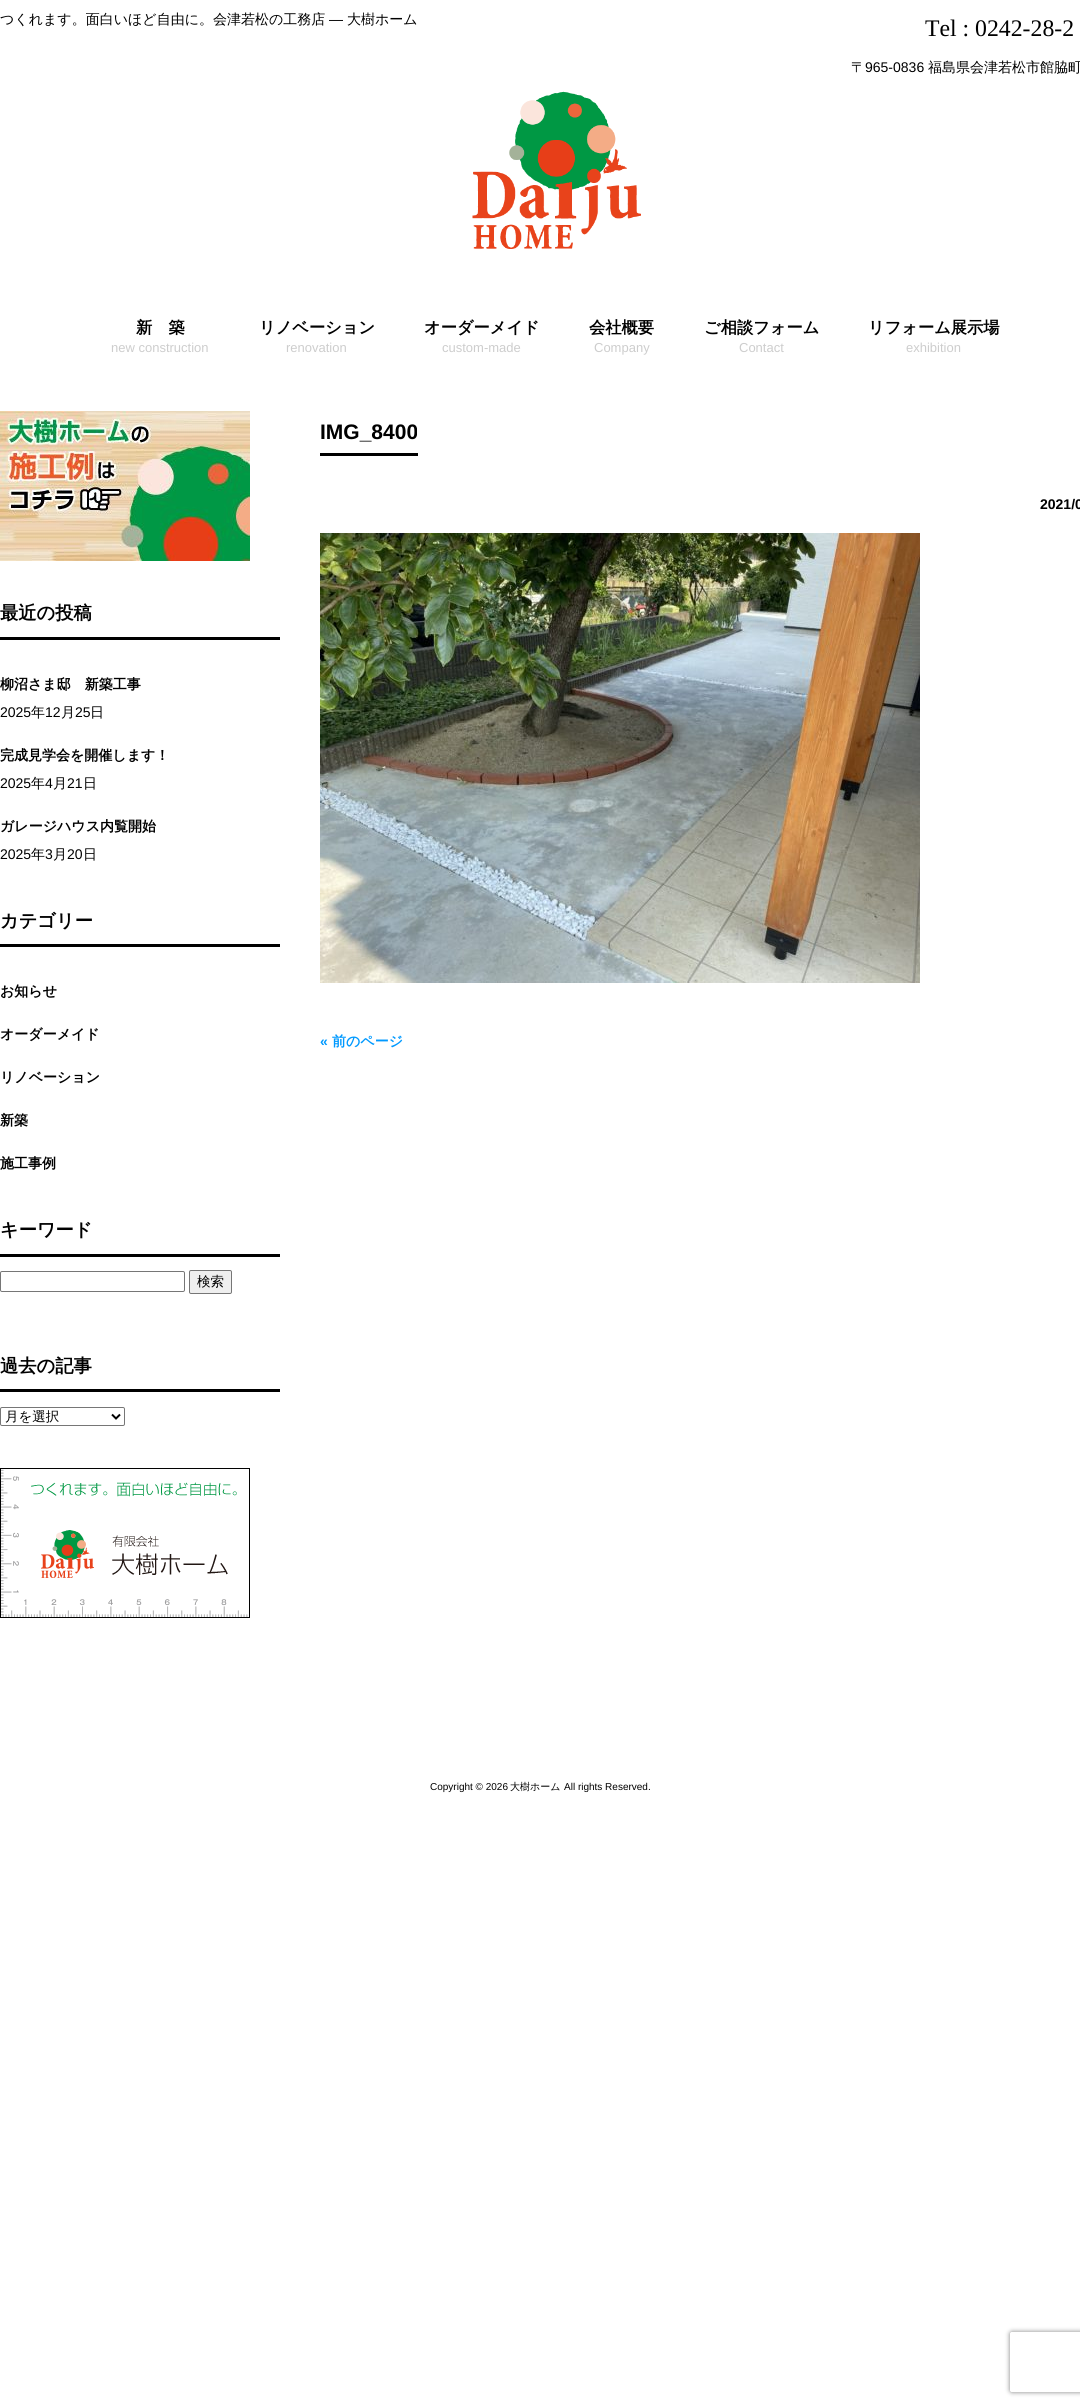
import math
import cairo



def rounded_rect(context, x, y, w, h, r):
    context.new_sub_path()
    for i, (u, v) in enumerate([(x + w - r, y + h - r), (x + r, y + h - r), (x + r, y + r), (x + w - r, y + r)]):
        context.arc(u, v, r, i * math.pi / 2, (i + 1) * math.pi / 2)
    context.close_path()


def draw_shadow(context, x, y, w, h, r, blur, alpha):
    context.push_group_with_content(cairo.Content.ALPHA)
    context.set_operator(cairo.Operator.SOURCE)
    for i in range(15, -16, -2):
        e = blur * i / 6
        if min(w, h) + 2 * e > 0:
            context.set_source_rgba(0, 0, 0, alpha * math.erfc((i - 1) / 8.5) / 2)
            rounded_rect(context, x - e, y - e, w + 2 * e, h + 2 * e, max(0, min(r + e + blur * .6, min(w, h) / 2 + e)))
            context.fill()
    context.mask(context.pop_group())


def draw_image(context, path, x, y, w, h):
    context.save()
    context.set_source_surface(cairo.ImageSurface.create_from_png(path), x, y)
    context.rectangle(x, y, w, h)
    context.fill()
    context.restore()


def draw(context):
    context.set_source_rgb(1, 1, 1)
    context.paint()
    draw_image(context, "images/1.png", 472, 91, 169, 158)
    draw_image(context, "images/2.png", 0, 411, 250, 150)
    context.set_source_rgb(0, 0, 0)
    context.rectangle(0, 637, 280, 3)
    context.fill()
    context.rectangle(0, 944, 280, 3)
    context.fill()
    context.rectangle(0, 1254, 280, 3)
    context.fill()
    rounded_rect(context, 0.5, 1271.5, 184, 20, 1.5)
    context.set_source_rgb(118 / 255, 118 / 255, 118 / 255)
    context.set_line_width(1)
    context.stroke()
    context.set_source_rgb(239 / 255, 239 / 255, 239 / 255)
    rounded_rect(context, 189.5, 1270.5, 42, 23, 1.5)
    context.fill_preserve()
    context.set_source_rgb(118 / 255, 118 / 255, 118 / 255)
    context.stroke()
    context.set_source_rgb(0, 0, 0)
    context.rectangle(0, 1389, 280, 3)
    context.fill()
    rounded_rect(context, 0.5, 1407.5, 124, 18, 1.5)
    context.set_source_rgb(118 / 255, 118 / 255, 118 / 255)
    context.stroke()
    context.new_path()
    context.move_to(112, 1414.5)
    context.line_to(116, 1418.5)
    context.line_to(120, 1414.5)
    context.set_source_rgb(0, 0, 0)
    context.set_line_width(2)
    context.stroke()
    draw_image(context, "images/3.png", 0, 1468, 250, 150)
    context.rectangle(320, 453, 98, 3)
    context.fill()
    draw_image(context, "images/4.png", 320, 533, 600, 450)
    context.save()
    context.set_fill_rule(cairo.FillRule.EVEN_ODD)
    context.new_path()
    context.move_to(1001, 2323)
    context.line_to(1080, 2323)
    context.line_to(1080, 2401)
    context.line_to(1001, 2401)
    context.close_path()
    context.move_to(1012, 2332)
    context.line_to(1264, 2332)
    context.curve_to(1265, 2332, 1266, 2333, 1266, 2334)
    context.line_to(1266, 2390)
    context.curve_to(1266, 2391, 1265, 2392, 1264, 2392)
    context.line_to(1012, 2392)
    context.curve_to(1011, 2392, 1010, 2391, 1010, 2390)
    context.line_to(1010, 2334)
    context.curve_to(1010, 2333, 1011, 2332, 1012, 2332)
    context.close_path()
    context.clip()
    context.set_source_rgb(128 / 255, 128 / 255, 128 / 255)
    draw_shadow(context, 1010, 2332, 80, 60, 2, 2.5, 1)
    context.restore()
    context.select_font_face("WenQuanYi Zen Hei Medium")
    context.set_font_size(14)
    context.move_to(0, 24)
    context.show_text("つくれます。面白いほど自由に。会津若松の工務店")
    context.select_font_face("Liberation Sans")
    context.move_to(329, 24)
    context.show_text("―")
    context.select_font_face("WenQuanYi Zen Hei Medium")
    context.move_to(347, 24)
    context.show_text("大樹ホーム")
    context.select_font_face("Liberation Serif")
    context.set_font_size(23.75)
    context.move_to(925, 36)
    context.show_text("Tel : 0242-28-2")
    context.select_font_face("WenQuanYi Zen Hei Medium")
    context.set_font_size(14)
    context.move_to(851, 72)
    context.show_text("〒")
    context.select_font_face("Liberation Sans")
    context.move_to(865, 72)
    context.show_text("965-0836")
    context.select_font_face("WenQuanYi Zen Hei Medium")
    context.move_to(928, 72)
    context.show_text("福島県会津若松市館脇町")
    context.select_font_face("WenQuanYi Zen Hei", cairo.FontSlant.NORMAL, cairo.FontWeight.BOLD)
    context.set_font_size(16.25)
    context.move_to(136, 333)
    context.show_text("新　築")
    context.select_font_face("Liberation Sans")
    context.set_font_size(13)
    context.set_source_rgb(205 / 255, 205 / 255, 205 / 255)
    context.move_to(111, 352)
    context.show_text("new construction")
    context.select_font_face("WenQuanYi Zen Hei", cairo.FontSlant.NORMAL, cairo.FontWeight.BOLD)
    context.set_font_size(16.25)
    context.set_source_rgb(0, 0, 0)
    context.move_to(259, 333)
    context.show_text("リノベーション")
    context.select_font_face("Liberation Sans")
    context.set_font_size(13)
    context.set_source_rgb(205 / 255, 205 / 255, 205 / 255)
    context.move_to(286, 352)
    context.show_text("renovation")
    context.select_font_face("WenQuanYi Zen Hei", cairo.FontSlant.NORMAL, cairo.FontWeight.BOLD)
    context.set_font_size(16.25)
    context.set_source_rgb(0, 0, 0)
    context.move_to(424, 333)
    context.show_text("オーダーメイド")
    context.select_font_face("Liberation Sans")
    context.set_font_size(13)
    context.set_source_rgb(205 / 255, 205 / 255, 205 / 255)
    context.move_to(442, 352)
    context.show_text("custom-made")
    context.select_font_face("WenQuanYi Zen Hei", cairo.FontSlant.NORMAL, cairo.FontWeight.BOLD)
    context.set_font_size(16.25)
    context.set_source_rgb(0, 0, 0)
    context.move_to(589, 333)
    context.show_text("会社概要")
    context.select_font_face("Liberation Sans")
    context.set_font_size(13)
    context.set_source_rgb(205 / 255, 205 / 255, 205 / 255)
    context.move_to(594, 352)
    context.show_text("Company")
    context.select_font_face("WenQuanYi Zen Hei", cairo.FontSlant.NORMAL, cairo.FontWeight.BOLD)
    context.set_font_size(16.25)
    context.set_source_rgb(0, 0, 0)
    context.move_to(704, 333)
    context.show_text("ご相談フォーム")
    context.select_font_face("Liberation Sans")
    context.set_font_size(13)
    context.set_source_rgb(205 / 255, 205 / 255, 205 / 255)
    context.move_to(739, 352)
    context.show_text("Contact")
    context.select_font_face("WenQuanYi Zen Hei", cairo.FontSlant.NORMAL, cairo.FontWeight.BOLD)
    context.set_font_size(16.25)
    context.set_source_rgb(0, 0, 0)
    context.move_to(868, 333)
    context.show_text("リフォーム展示場")
    context.select_font_face("Liberation Sans")
    context.set_font_size(13)
    context.set_source_rgb(205 / 255, 205 / 255, 205 / 255)
    context.move_to(906, 352)
    context.show_text("exhibition")
    context.select_font_face("WenQuanYi Zen Hei", cairo.FontSlant.NORMAL, cairo.FontWeight.BOLD)
    context.set_font_size(18.25)
    context.set_source_rgb(0, 0, 0)
    context.move_to(0, 619)
    context.show_text("最近の投稿")
    context.set_font_size(14)
    context.move_to(0, 689)
    context.show_text("柳沼さま邸　新築工事")
    context.select_font_face("Liberation Sans")
    context.move_to(0, 717)
    context.show_text("2025")
    context.select_font_face("WenQuanYi Zen Hei Medium")
    context.move_to(31, 717)
    context.show_text("年")
    context.select_font_face("Liberation Sans")
    context.move_to(45, 717)
    context.show_text("12")
    context.select_font_face("WenQuanYi Zen Hei Medium")
    context.move_to(61, 717)
    context.show_text("月")
    context.select_font_face("Liberation Sans")
    context.move_to(75, 717)
    context.show_text("25")
    context.select_font_face("WenQuanYi Zen Hei Medium")
    context.move_to(90, 717)
    context.show_text("日")
    context.select_font_face("WenQuanYi Zen Hei", cairo.FontSlant.NORMAL, cairo.FontWeight.BOLD)
    context.move_to(0, 760)
    context.show_text("完成見学会を開催します！")
    context.select_font_face("Liberation Sans")
    context.move_to(0, 788)
    context.show_text("2025")
    context.select_font_face("WenQuanYi Zen Hei Medium")
    context.move_to(31, 788)
    context.show_text("年")
    context.select_font_face("Liberation Sans")
    context.move_to(45, 788)
    context.show_text("4")
    context.select_font_face("WenQuanYi Zen Hei Medium")
    context.move_to(53, 788)
    context.show_text("月")
    context.select_font_face("Liberation Sans")
    context.move_to(67, 788)
    context.show_text("21")
    context.select_font_face("WenQuanYi Zen Hei Medium")
    context.move_to(83, 788)
    context.show_text("日")
    context.select_font_face("WenQuanYi Zen Hei", cairo.FontSlant.NORMAL, cairo.FontWeight.BOLD)
    context.move_to(0, 831)
    context.show_text("ガレージハウス内覧開始")
    context.select_font_face("Liberation Sans")
    context.move_to(0, 859)
    context.show_text("2025")
    context.select_font_face("WenQuanYi Zen Hei Medium")
    context.move_to(31, 859)
    context.show_text("年")
    context.select_font_face("Liberation Sans")
    context.move_to(45, 859)
    context.show_text("3")
    context.select_font_face("WenQuanYi Zen Hei Medium")
    context.move_to(53, 859)
    context.show_text("月")
    context.select_font_face("Liberation Sans")
    context.move_to(67, 859)
    context.show_text("20")
    context.select_font_face("WenQuanYi Zen Hei Medium")
    context.move_to(83, 859)
    context.show_text("日")
    context.select_font_face("WenQuanYi Zen Hei", cairo.FontSlant.NORMAL, cairo.FontWeight.BOLD)
    context.set_font_size(18.25)
    context.move_to(0, 927)
    context.show_text("カテゴリー")
    context.set_font_size(14)
    context.move_to(0, 996)
    context.show_text("お知らせ")
    context.move_to(0, 1039)
    context.show_text("オーダーメイド")
    context.move_to(0, 1082)
    context.show_text("リノベーション")
    context.move_to(0, 1125)
    context.show_text("新築")
    context.move_to(0, 1168)
    context.show_text("施工事例")
    context.set_font_size(18.25)
    context.move_to(0, 1236)
    context.show_text("キーワード")
    context.select_font_face("WenQuanYi Zen Hei Medium")
    context.set_font_size(13.5)
    context.move_to(197, 1286)
    context.show_text("検索")
    context.select_font_face("WenQuanYi Zen Hei", cairo.FontSlant.NORMAL, cairo.FontWeight.BOLD)
    context.set_font_size(18.25)
    context.move_to(0, 1372)
    context.show_text("過去の記事")
    context.select_font_face("WenQuanYi Zen Hei Medium")
    context.set_font_size(13.5)
    context.move_to(5, 1421)
    context.show_text("月を選択")
    context.select_font_face("Liberation Sans", cairo.FontSlant.NORMAL, cairo.FontWeight.BOLD)
    context.set_font_size(21)
    context.move_to(320, 439)
    context.show_text("IMG_8400")
    context.set_font_size(14)
    context.move_to(1040, 509)
    context.show_text("2021/0")
    context.set_source_rgb(0, 153 / 255, 1)
    context.move_to(320, 1046)
    context.show_text("«")
    context.select_font_face("WenQuanYi Zen Hei", cairo.FontSlant.NORMAL, cairo.FontWeight.BOLD)
    context.move_to(332, 1046)
    context.show_text("前のページ")
    context.select_font_face("Liberation Sans")
    context.set_font_size(10)
    context.set_source_rgb(0, 0, 0)
    context.move_to(430, 1790)
    context.show_text("Copyright © 2026")
    context.select_font_face("WenQuanYi Zen Hei Medium")
    context.move_to(510, 1790)
    context.show_text("大樹ホーム")
    context.select_font_face("Liberation Sans")
    context.move_to(564, 1790)
    context.show_text("All rights Reserved.")


surface = cairo.ImageSurface(cairo.Format.RGB24, 1080, 2406)
context = cairo.Context(surface)
options = cairo.FontOptions()
options.set_hint_metrics(cairo.HintMetrics.OFF)
options.set_hint_style(cairo.HintStyle.NONE)
context.set_font_options(options)
context.set_miter_limit(4)
draw(context)
surface.write_to_png("out.png")
